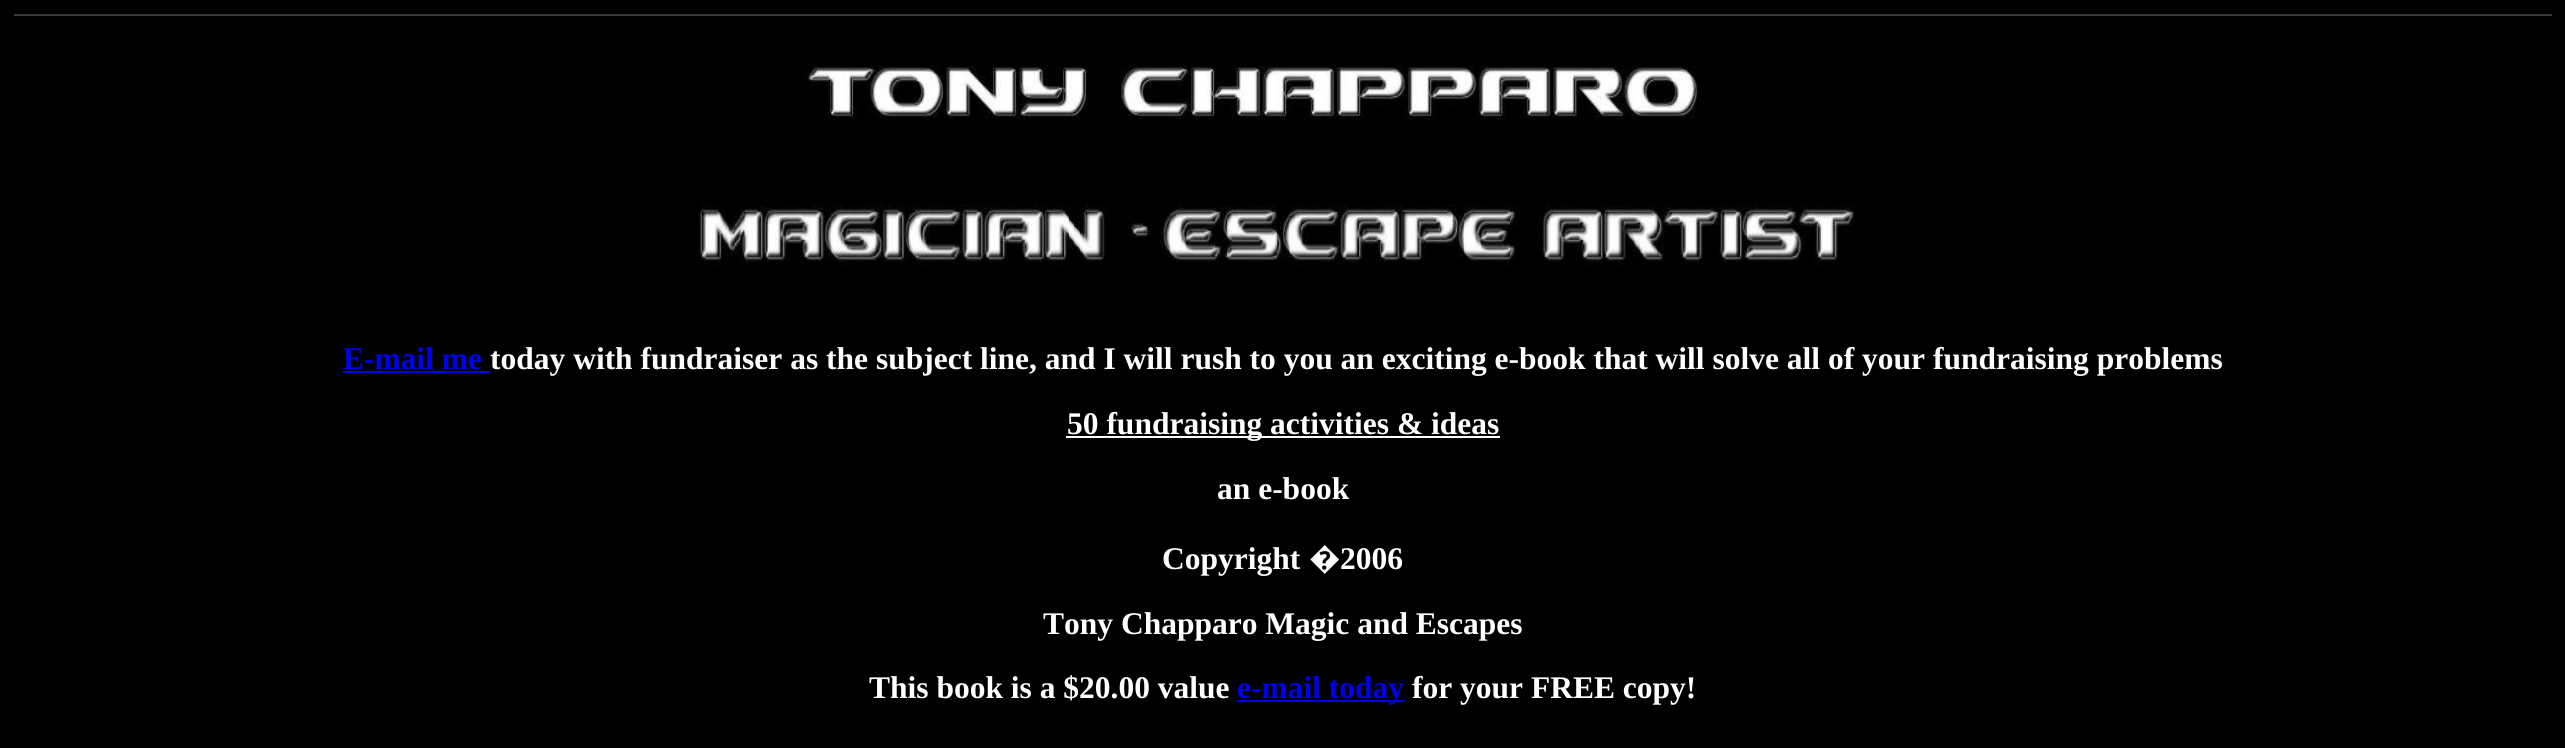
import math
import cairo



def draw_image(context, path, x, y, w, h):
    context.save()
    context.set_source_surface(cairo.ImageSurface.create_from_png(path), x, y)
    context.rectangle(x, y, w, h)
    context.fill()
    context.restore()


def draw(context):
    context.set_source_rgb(0, 0, 0)
    context.paint()
    context.set_source_rgb(57 / 255, 57 / 255, 57 / 255)
    context.rectangle(14, 14, 2538, 2)
    context.fill()
    draw_image(context, "images/1.png", 697, 65, 1158, 203)
    context.set_source_rgb(0, 0, 238 / 255)
    context.rectangle(343, 371, 147, 2)
    context.fill()
    context.set_source_rgb(1, 1, 1)
    context.rectangle(1066, 436, 434, 2)
    context.fill()
    context.set_source_rgb(0, 0, 238 / 255)
    context.rectangle(1237, 700, 168, 2)
    context.fill()
    context.select_font_face("Liberation Serif", cairo.FontSlant.NORMAL, cairo.FontWeight.BOLD)
    context.set_font_size(31.5)
    context.move_to(343, 369)
    context.show_text("E-mail me")
    context.set_source_rgb(1, 1, 1)
    context.move_to(490, 369)
    context.show_text("today with fundraiser as the subject line, and I will rush to you an exciting e-book that will solve all of your fundraising problems")
    context.move_to(1067, 434)
    context.show_text("50 fundraising activities & ideas")
    context.move_to(1217, 499)
    context.show_text("an e-book")
    context.move_to(1162, 569)
    context.show_text("Copyright")
    context.select_font_face("Noto Sans", cairo.FontSlant.NORMAL, cairo.FontWeight.BOLD)
    context.move_to(1309, 569)
    context.show_text("�")
    context.select_font_face("Liberation Serif", cairo.FontSlant.NORMAL, cairo.FontWeight.BOLD)
    context.move_to(1340, 569)
    context.show_text("2006")
    context.move_to(1043, 634)
    context.show_text("Tony Chapparo Magic and Escapes")
    context.move_to(869, 698)
    context.show_text("This book is a $20.00 value")
    context.set_source_rgb(0, 0, 238 / 255)
    context.move_to(1237, 698)
    context.show_text("e-mail today")
    context.set_source_rgb(1, 1, 1)
    context.move_to(1412, 698)
    context.show_text("for your FREE copy!")


surface = cairo.ImageSurface(cairo.Format.RGB24, 2565, 748)
context = cairo.Context(surface)
options = cairo.FontOptions()
options.set_hint_metrics(cairo.HintMetrics.OFF)
options.set_hint_style(cairo.HintStyle.NONE)
context.set_font_options(options)
context.set_miter_limit(4)
draw(context)
surface.write_to_png("out.png")
